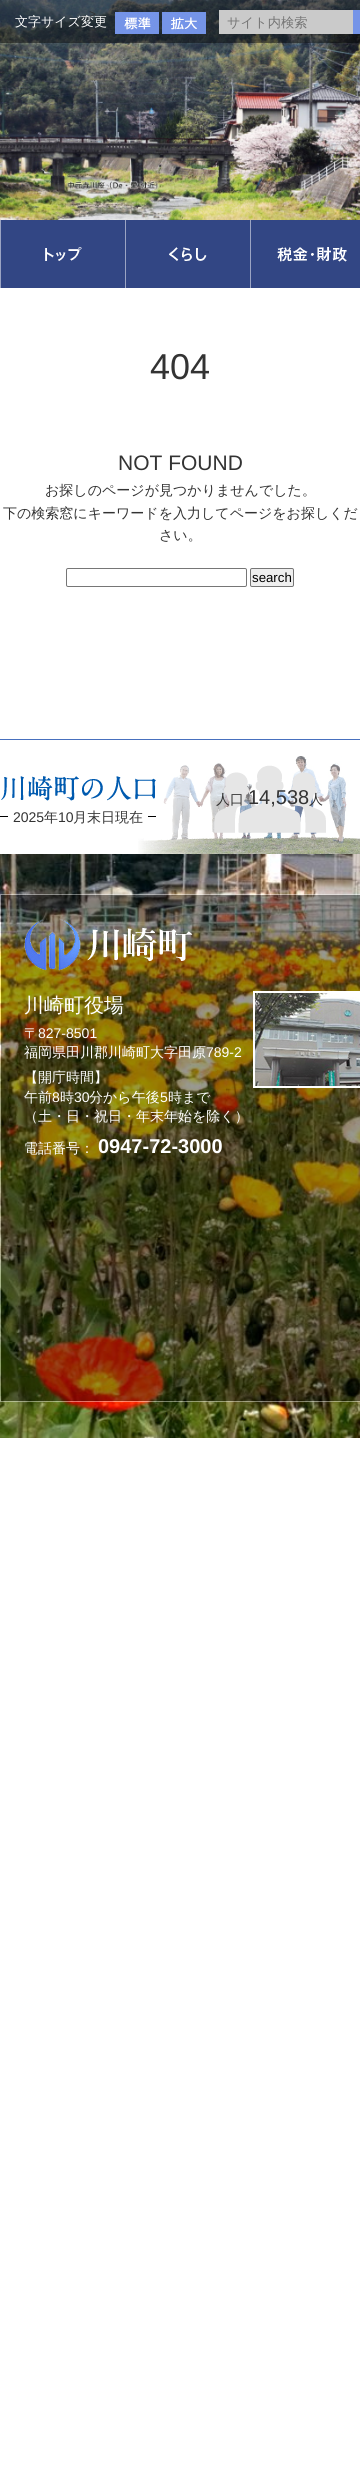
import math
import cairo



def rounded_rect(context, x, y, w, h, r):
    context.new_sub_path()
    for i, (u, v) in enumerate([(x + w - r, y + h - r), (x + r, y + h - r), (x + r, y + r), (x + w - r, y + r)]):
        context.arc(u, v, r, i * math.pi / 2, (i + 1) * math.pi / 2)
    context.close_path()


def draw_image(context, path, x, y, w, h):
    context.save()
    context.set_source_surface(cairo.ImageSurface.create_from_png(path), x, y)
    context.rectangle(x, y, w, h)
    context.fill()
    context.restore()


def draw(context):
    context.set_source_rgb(1, 1, 1)
    context.paint()
    rounded_rect(context, 66.5, 568.5, 180, 18, 1.5)
    context.set_source_rgb(118 / 255, 118 / 255, 118 / 255)
    context.set_line_width(1)
    context.stroke()
    context.set_source_rgb(239 / 255, 239 / 255, 239 / 255)
    rounded_rect(context, 250.5, 568.5, 43, 18, 1.5)
    context.fill_preserve()
    context.set_source_rgb(118 / 255, 118 / 255, 118 / 255)
    context.stroke()
    draw_image(context, "images/1.png", 0, 0, 360, 220)
    context.set_source_rgba(0, 0, 0, 0.44)
    context.rectangle(0, 0, 360, 43)
    context.fill()
    draw_image(context, "images/2.png", 115, 12, 44, 22)
    draw_image(context, "images/3.png", 162, 12, 44, 22)
    context.set_source_rgb(202 / 255, 202 / 255, 202 / 255)
    context.rectangle(219, 10, 134, 24)
    context.fill()
    context.set_source_rgb(117 / 255, 148 / 255, 231 / 255)
    context.rectangle(353, 10, 7, 24)
    context.fill()
    context.set_source_rgb(50 / 255, 70 / 255, 132 / 255)
    context.rectangle(82, 220, 278, 68)
    context.fill()
    draw_image(context, "images/4.png", 0, 220, 82, 68)
    draw_image(context, "images/5.png", 125, 220, 82, 68)
    draw_image(context, "images/6.png", 250, 220, 97, 68)
    draw_image(context, "images/7.png", 138, 756, 222, 98)
    context.set_source_rgb(71 / 255, 112 / 255, 190 / 255)
    context.rectangle(0, 739, 360, 1)
    context.fill()
    draw_image(context, "images/8.png", 214, 765, 112, 68)
    draw_image(context, "images/9.png", 1, 776, 155, 25)
    context.set_source_rgb(0, 0, 0)
    context.rectangle(0, 816, 156, 1)
    context.fill()
    context.set_source_rgb(1, 1, 1)
    context.rectangle(8, 816, 140, 1)
    context.fill()
    draw_image(context, "images/10.png", 0, 854, 360, 584)
    context.set_source_rgba(0, 0, 0, 0.4)
    context.rectangle(1, 895, 359, 506)
    context.fill()
    context.rectangle(0.5, 894.5, 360, 507)
    context.set_source_rgba(1, 1, 1, 0.4)
    context.stroke()
    draw_image(context, "images/11.png", 24, 918, 169, 53)
    draw_image(context, "images/12.png", 253, 991, 107, 97)
    context.select_font_face("Liberation Sans")
    context.set_font_size(36)
    context.set_source_rgb(51 / 255, 51 / 255, 51 / 255)
    context.move_to(150, 379)
    context.show_text("404")
    context.set_font_size(21)
    context.move_to(118, 470)
    context.show_text("NOT FOUND")
    context.select_font_face("WenQuanYi Zen Hei Medium")
    context.set_font_size(14)
    context.move_to(45, 495)
    context.show_text("お探しのページが見つかりませんでした。")
    context.move_to(3, 518)
    context.show_text("下の検索窓にキーワードを入力してページをお探しくだ")
    context.move_to(159, 540)
    context.show_text("さい。")
    context.select_font_face("Liberation Sans")
    context.set_font_size(13.25)
    context.set_source_rgb(0, 0, 0)
    context.move_to(252, 582)
    context.show_text("search")
    context.select_font_face("WenQuanYi Zen Hei Medium")
    context.set_font_size(13)
    context.set_source_rgb(1, 1, 1)
    context.move_to(15, 26)
    context.show_text("文字サイズ変更")
    context.select_font_face("Liberation Sans")
    context.set_font_size(12)
    context.set_source_rgb(51 / 255, 51 / 255, 51 / 255)
    context.move_to(89, 18)
    context.show_text(">")
    context.select_font_face("WenQuanYi Zen Hei Medium")
    context.set_font_size(13.25)
    context.set_source_rgb(117 / 255, 117 / 255, 117 / 255)
    context.move_to(227, 27)
    context.show_text("サイト内検索")
    context.set_font_size(14)
    context.set_source_rgb(51 / 255, 51 / 255, 51 / 255)
    context.move_to(216, 804)
    context.show_text("人口")
    context.select_font_face("Liberation Sans")
    context.set_font_size(20)
    context.move_to(248, 804)
    context.show_text("14,538")
    context.select_font_face("WenQuanYi Zen Hei Medium")
    context.set_font_size(14)
    context.move_to(309, 804)
    context.show_text("人")
    context.select_font_face("Liberation Sans")
    context.move_to(13, 822)
    context.show_text("2025")
    context.select_font_face("WenQuanYi Zen Hei Medium")
    context.move_to(44, 822)
    context.show_text("年")
    context.select_font_face("Liberation Sans")
    context.move_to(58, 822)
    context.show_text("10")
    context.select_font_face("WenQuanYi Zen Hei Medium")
    context.move_to(73, 822)
    context.show_text("月末日現在")
    context.set_font_size(20)
    context.set_source_rgb(1, 1, 1)
    context.move_to(24, 1012)
    context.show_text("川崎町役場")
    context.set_font_size(14)
    context.move_to(24, 1038)
    context.show_text("〒")
    context.select_font_face("Liberation Sans")
    context.move_to(38, 1038)
    context.show_text("827-8501")
    context.select_font_face("WenQuanYi Zen Hei Medium")
    context.move_to(24, 1057)
    context.show_text("福岡県田川郡川崎町大字田原")
    context.select_font_face("Liberation Sans")
    context.move_to(206, 1057)
    context.show_text("789-2")
    context.select_font_face("WenQuanYi Zen Hei Medium")
    context.move_to(24, 1082)
    context.show_text("【開庁時間】")
    context.move_to(24, 1102)
    context.show_text("午前")
    context.select_font_face("Liberation Sans")
    context.move_to(52, 1102)
    context.show_text("8")
    context.select_font_face("WenQuanYi Zen Hei Medium")
    context.move_to(60, 1102)
    context.show_text("時")
    context.select_font_face("Liberation Sans")
    context.move_to(74, 1102)
    context.show_text("30")
    context.select_font_face("WenQuanYi Zen Hei Medium")
    context.move_to(89, 1102)
    context.show_text("分から午後")
    context.select_font_face("Liberation Sans")
    context.move_to(160, 1102)
    context.show_text("5")
    context.select_font_face("WenQuanYi Zen Hei Medium")
    context.move_to(168, 1102)
    context.show_text("時まで")
    context.move_to(24, 1121)
    context.show_text("（土・日・祝日・年末年始を除く）")
    context.move_to(24, 1153)
    context.show_text("電話番号：")
    context.select_font_face("Liberation Sans", cairo.FontSlant.NORMAL, cairo.FontWeight.BOLD)
    context.set_font_size(20)
    context.move_to(98, 1153)
    context.show_text("0947-72-3000")


surface = cairo.ImageSurface(cairo.Format.RGB24, 360, 2488)
context = cairo.Context(surface)
options = cairo.FontOptions()
options.set_hint_metrics(cairo.HintMetrics.OFF)
options.set_hint_style(cairo.HintStyle.NONE)
context.set_font_options(options)
context.set_miter_limit(4)
draw(context)
surface.write_to_png("out.png")
